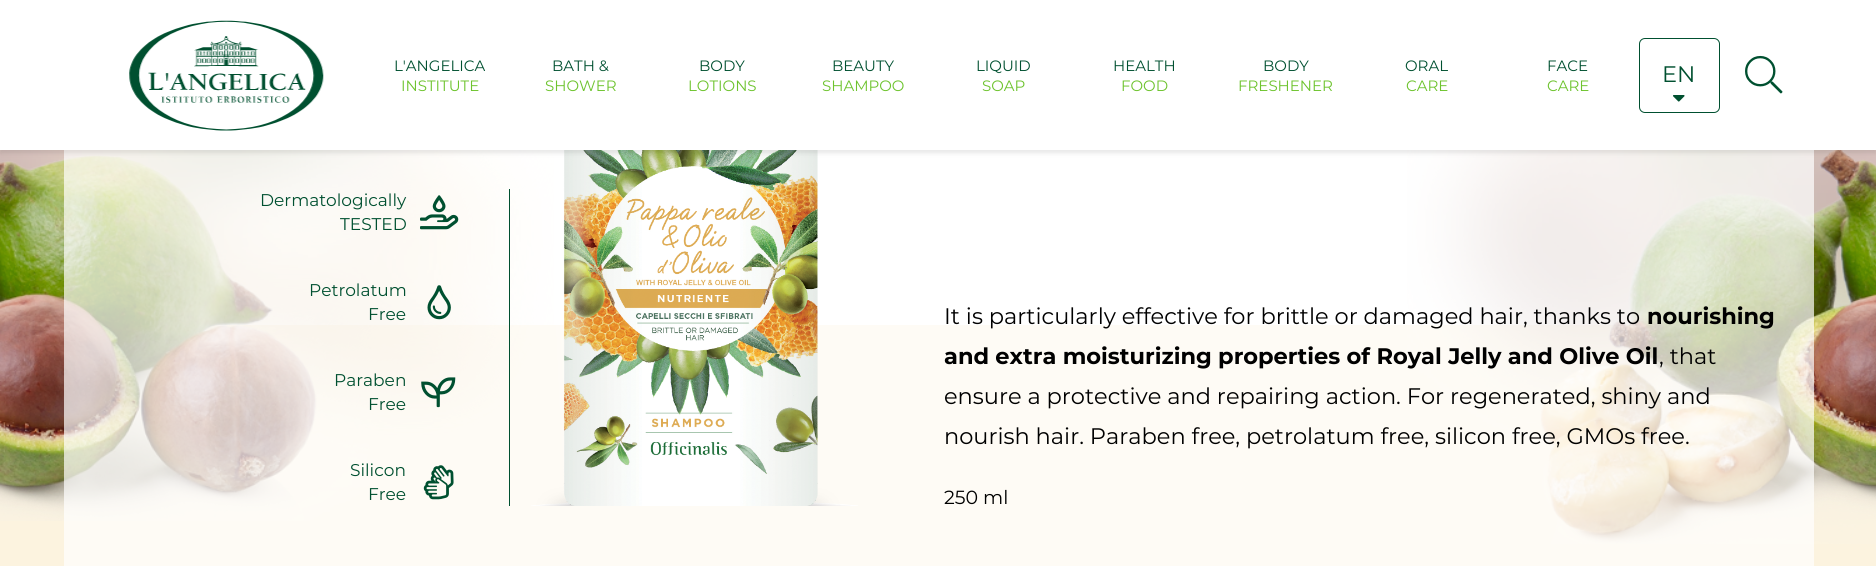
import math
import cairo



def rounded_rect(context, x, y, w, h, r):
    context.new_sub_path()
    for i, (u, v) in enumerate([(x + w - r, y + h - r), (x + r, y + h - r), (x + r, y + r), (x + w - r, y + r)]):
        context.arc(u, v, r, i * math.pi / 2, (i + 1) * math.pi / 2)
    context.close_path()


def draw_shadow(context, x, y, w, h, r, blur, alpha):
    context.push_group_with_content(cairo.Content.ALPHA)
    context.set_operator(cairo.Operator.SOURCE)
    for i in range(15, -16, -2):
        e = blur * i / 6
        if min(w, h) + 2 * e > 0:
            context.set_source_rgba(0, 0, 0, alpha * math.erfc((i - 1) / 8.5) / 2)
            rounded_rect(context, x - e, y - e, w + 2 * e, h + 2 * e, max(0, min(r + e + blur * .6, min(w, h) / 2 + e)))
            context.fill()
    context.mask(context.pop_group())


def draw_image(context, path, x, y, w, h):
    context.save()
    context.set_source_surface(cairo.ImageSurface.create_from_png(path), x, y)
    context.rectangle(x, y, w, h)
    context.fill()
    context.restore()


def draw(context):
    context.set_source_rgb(1, 1, 1)
    context.paint()
    context.set_source_rgb(252 / 255, 243 / 255, 223 / 255)
    context.rectangle(0, 325, 1876, 241)
    context.fill()
    draw_image(context, "images/4.png", 0, 150, 554, 371)
    draw_image(context, "images/5.png", 1407, 150, 469, 394)
    context.set_source_rgba(1, 1, 1, 0.7)
    context.rectangle(64, 150, 1750, 416)
    context.fill()
    draw_image(context, "images/10.png", 531, 150, 327, 356)
    context.set_source_rgb(0, 0, 0)
    draw_shadow(context, 0, 3, 1876, 150, 0, 2.5, 0.1)
    context.set_source_rgb(1, 1, 1)
    context.rectangle(0, 0, 1876, 150)
    context.fill()
    draw_image(context, "images/1.png", 129, 20, 195, 111)
    rounded_rect(context, 1639.5, 38.5, 80, 74, 5.5)
    context.set_source_rgb(0, 80 / 255, 48 / 255)
    context.set_line_width(1)
    context.stroke()
    draw_image(context, "images/2.png", 1673, 95, 12, 7)
    draw_image(context, "images/3.png", 1745, 55, 38, 39)
    context.rectangle(509, 189, 1, 317)
    context.fill()
    draw_image(context, "images/6.png", 420, 195, 39, 35)
    draw_image(context, "images/7.png", 427, 285, 24, 35)
    draw_image(context, "images/8.png", 421, 377, 35, 31)
    draw_image(context, "images/9.png", 423, 465, 31, 35)
    context.select_font_face("Montserrat")
    context.set_font_size(15)
    context.move_to(394, 71)
    context.show_text("L'ANGELICA")
    context.set_source_rgb(109 / 255, 195 / 255, 45 / 255)
    context.move_to(401, 91)
    context.show_text("INSTITUTE")
    context.set_source_rgb(0, 80 / 255, 48 / 255)
    context.move_to(552, 71)
    context.show_text("BATH &")
    context.set_source_rgb(109 / 255, 195 / 255, 45 / 255)
    context.move_to(545, 91)
    context.show_text("SHOWER")
    context.set_source_rgb(0, 80 / 255, 48 / 255)
    context.move_to(699, 71)
    context.show_text("BODY")
    context.set_source_rgb(109 / 255, 195 / 255, 45 / 255)
    context.move_to(688, 91)
    context.show_text("LOTIONS")
    context.set_source_rgb(0, 80 / 255, 48 / 255)
    context.move_to(832, 71)
    context.show_text("BEAUTY")
    context.set_source_rgb(109 / 255, 195 / 255, 45 / 255)
    context.move_to(822, 91)
    context.show_text("SHAMPOO")
    context.set_source_rgb(0, 80 / 255, 48 / 255)
    context.move_to(976, 71)
    context.show_text("LIQUID")
    context.set_source_rgb(109 / 255, 195 / 255, 45 / 255)
    context.move_to(982, 91)
    context.show_text("SOAP")
    context.set_source_rgb(0, 80 / 255, 48 / 255)
    context.move_to(1113, 71)
    context.show_text("HEALTH")
    context.set_source_rgb(109 / 255, 195 / 255, 45 / 255)
    context.move_to(1121, 91)
    context.show_text("FOOD")
    context.set_source_rgb(0, 80 / 255, 48 / 255)
    context.move_to(1263, 71)
    context.show_text("BODY")
    context.set_source_rgb(109 / 255, 195 / 255, 45 / 255)
    context.move_to(1238, 91)
    context.show_text("FRESHENER")
    context.set_source_rgb(0, 80 / 255, 48 / 255)
    context.move_to(1405, 71)
    context.show_text("ORAL")
    context.set_source_rgb(109 / 255, 195 / 255, 45 / 255)
    context.move_to(1406, 91)
    context.show_text("CARE")
    context.set_source_rgb(0, 80 / 255, 48 / 255)
    context.move_to(1547, 71)
    context.show_text("FACE")
    context.set_source_rgb(109 / 255, 195 / 255, 45 / 255)
    context.move_to(1547, 91)
    context.show_text("CARE")
    context.set_font_size(22.5)
    context.set_source_rgb(0, 80 / 255, 48 / 255)
    context.move_to(1662, 82)
    context.show_text("EN")
    context.set_font_size(17)
    context.move_to(260, 206)
    context.show_text("Dermatologically")
    context.move_to(340, 230)
    context.show_text("TESTED")
    context.move_to(309, 296)
    context.show_text("Petrolatum")
    context.move_to(368, 320)
    context.show_text("Free")
    context.move_to(334, 386)
    context.show_text("Paraben")
    context.move_to(368, 410)
    context.show_text("Free")
    context.move_to(350, 476)
    context.show_text("Silicon")
    context.move_to(368, 500)
    context.show_text("Free")
    context.set_font_size(22.5)
    context.set_source_rgb(0, 0, 0)
    context.move_to(944, 324)
    context.show_text("It is particularly effective for brittle or damaged hair, thanks to")
    context.select_font_face("Montserrat", cairo.FontSlant.NORMAL, cairo.FontWeight.BOLD)
    context.move_to(1647, 324)
    context.show_text("nourishing")
    context.move_to(944, 364)
    context.show_text("and extra moisturizing properties of Royal Jelly and Olive Oil")
    context.select_font_face("Montserrat")
    context.move_to(1659, 364)
    context.show_text(", that")
    context.move_to(944, 404)
    context.show_text("ensure a protective and repairing action. For regenerated, shiny and")
    context.move_to(944, 444)
    context.show_text("nourish hair. Paraben free, petrolatum free, silicon free, GMOs free.")
    context.set_font_size(19)
    context.move_to(944, 504)
    context.show_text("250 ml")


surface = cairo.ImageSurface(cairo.Format.RGB24, 1876, 566)
context = cairo.Context(surface)
options = cairo.FontOptions()
options.set_hint_metrics(cairo.HintMetrics.OFF)
options.set_hint_style(cairo.HintStyle.NONE)
context.set_font_options(options)
context.set_miter_limit(4)
draw(context)
surface.write_to_png("out.png")
